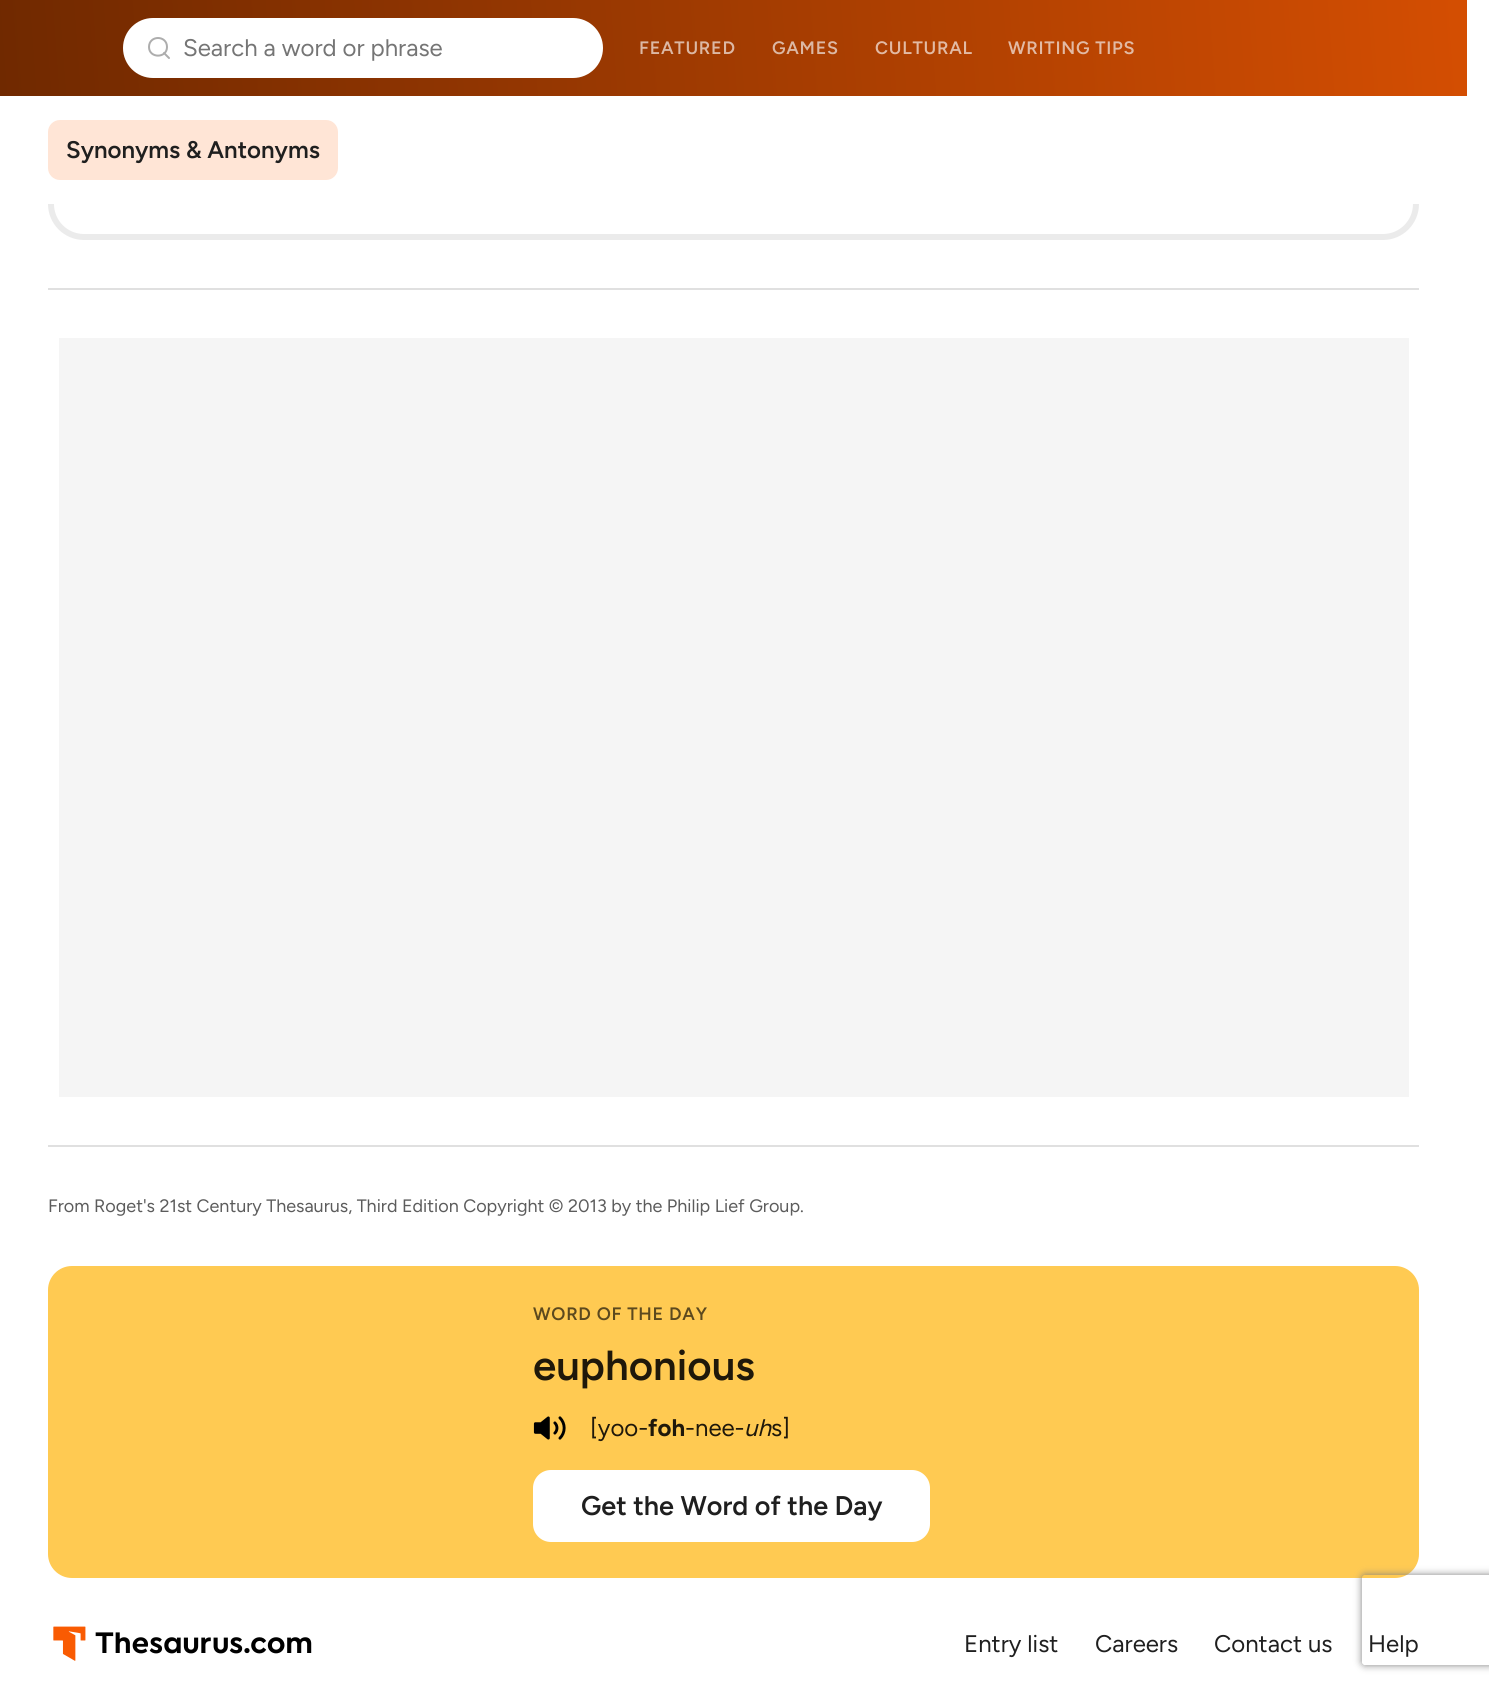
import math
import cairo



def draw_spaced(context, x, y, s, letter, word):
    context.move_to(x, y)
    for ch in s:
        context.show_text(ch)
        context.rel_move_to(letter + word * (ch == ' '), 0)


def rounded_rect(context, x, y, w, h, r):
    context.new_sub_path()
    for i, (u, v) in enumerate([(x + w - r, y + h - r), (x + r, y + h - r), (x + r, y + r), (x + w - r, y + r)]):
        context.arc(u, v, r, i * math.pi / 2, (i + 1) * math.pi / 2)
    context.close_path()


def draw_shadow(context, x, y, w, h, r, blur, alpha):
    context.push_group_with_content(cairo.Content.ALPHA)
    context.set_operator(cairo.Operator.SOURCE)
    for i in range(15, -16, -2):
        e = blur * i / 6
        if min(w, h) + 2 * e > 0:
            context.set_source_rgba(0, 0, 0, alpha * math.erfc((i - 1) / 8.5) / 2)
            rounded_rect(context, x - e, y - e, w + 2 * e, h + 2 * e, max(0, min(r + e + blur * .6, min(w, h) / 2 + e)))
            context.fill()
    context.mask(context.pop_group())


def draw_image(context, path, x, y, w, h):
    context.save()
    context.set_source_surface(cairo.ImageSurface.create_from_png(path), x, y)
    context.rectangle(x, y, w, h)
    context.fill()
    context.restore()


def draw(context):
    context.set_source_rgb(1, 1, 1)
    context.paint()
    rounded_rect(context, 51, -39, 1365, 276, 33)
    context.set_source_rgb(235 / 255, 235 / 255, 235 / 255)
    context.set_line_width(6)
    context.stroke()
    gradient = cairo.LinearGradient(0.4, 102, 1467, -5.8)
    gradient.add_color_stop_rgba(0, 112 / 255, 41 / 255, 0, 1)
    gradient.add_color_stop_rgba(1, 212 / 255, 78 / 255, 2 / 255, 1)
    context.set_source(gradient)
    context.rectangle(0, 0, 1467, 96)
    context.fill()
    context.set_source_rgb(1, 1, 1)
    rounded_rect(context, 123, 18, 480, 60, 30)
    context.fill()
    context.new_path()
    context.move_to(169, 58)
    context.line_to(164, 53)
    context.move_to(167, 47)
    context.curve_to(167, 58.5, 149, 58.5, 149, 47)
    context.curve_to(149, 35, 167, 35, 167, 47)
    context.close_path()
    context.set_source_rgb(173 / 255, 173 / 255, 173 / 255)
    context.set_line_width(2)
    context.set_line_cap(cairo.LineCap.ROUND)
    context.set_line_join(cairo.LineJoin.ROUND)
    context.stroke()
    context.set_source_rgb(224 / 255, 224 / 255, 224 / 255)
    context.rectangle(48, 288, 1371, 2)
    context.fill()
    context.set_source_rgb(245 / 255, 245 / 255, 245 / 255)
    context.rectangle(59, 338, 1350, 759)
    context.fill()
    context.set_source_rgb(224 / 255, 224 / 255, 224 / 255)
    context.rectangle(48, 1145, 1371, 2)
    context.fill()
    context.set_source_rgb(1, 1, 1)
    context.rectangle(48, 96, 1371, 108)
    context.fill()
    context.set_source_rgb(1, 229 / 255, 214 / 255)
    rounded_rect(context, 48, 120, 290, 60, 12)
    context.fill()
    context.set_source_rgb(1, 202 / 255, 82 / 255)
    rounded_rect(context, 48, 1266, 1371, 312, 24)
    context.fill()
    draw_image(context, "images/1.png", 533, 1416, 33, 24)
    context.set_source_rgb(1, 1, 1)
    rounded_rect(context, 533, 1470, 397, 72, 18)
    context.fill()
    draw_image(context, "images/2.png", 53, 1626, 259, 35)
    context.save()
    context.set_fill_rule(cairo.FillRule.EVEN_ODD)
    context.new_path()
    context.move_to(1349, 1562)
    context.line_to(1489, 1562)
    context.line_to(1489, 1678)
    context.line_to(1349, 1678)
    context.close_path()
    context.move_to(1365, 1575)
    context.line_to(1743, 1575)
    context.curve_to(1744.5, 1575, 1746, 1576.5, 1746, 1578)
    context.line_to(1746, 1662)
    context.curve_to(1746, 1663.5, 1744.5, 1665, 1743, 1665)
    context.line_to(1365, 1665)
    context.curve_to(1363.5, 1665, 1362, 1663.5, 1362, 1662)
    context.line_to(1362, 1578)
    context.curve_to(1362, 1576.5, 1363.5, 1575, 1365, 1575)
    context.close_path()
    context.clip()
    context.set_source_rgb(128 / 255, 128 / 255, 128 / 255)
    draw_shadow(context, 1362, 1575, 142, 90, 3, 4, 1)
    context.restore()
    context.select_font_face("Figtree")
    context.set_font_size(24)
    context.set_source_rgb(117 / 255, 117 / 255, 117 / 255)
    context.move_to(183, 56)
    context.show_text("Search a word or phrase")
    context.select_font_face("Figtree SemiBold")
    context.set_font_size(18)
    context.set_source_rgb(220 / 255, 184 / 255, 164 / 255)
    draw_spaced(context, 639, 54, "FEATURED", 0.75, 0)
    draw_spaced(context, 772, 54, "GAMES", 0.75, 0)
    context.set_source_rgb(226 / 255, 186 / 255, 164 / 255)
    draw_spaced(context, 875, 54, "CULTURAL", 0.75, 0)
    draw_spaced(context, 1008, 54, "WRITING TIPS", 0.75, 0)
    context.set_font_size(24)
    context.set_source_rgb(31 / 255, 31 / 255, 31 / 255)
    context.move_to(66, 158)
    context.show_text("Synonyms & Antonyms")
    context.select_font_face("Figtree")
    context.set_font_size(18)
    context.set_source_rgb(92 / 255, 92 / 255, 92 / 255)
    context.move_to(48, 1212)
    context.show_text("From Roget's 21st Century Thesaurus, Third Edition Copyright © 2013 by the Philip Lief Group.")
    context.select_font_face("Figtree SemiBold")
    context.set_source_rgb(92 / 255, 73 / 255, 30 / 255)
    draw_spaced(context, 533, 1320, "WORD OF THE DAY", 0.75, 0)
    context.set_font_size(42)
    context.set_source_rgb(31 / 255, 24 / 255, 10 / 255)
    context.move_to(533, 1380)
    context.show_text("euphonious")
    context.select_font_face("Figtree")
    context.set_font_size(24)
    context.move_to(590, 1436)
    context.show_text("[yoo-")
    context.select_font_face("Figtree", cairo.FontSlant.NORMAL, cairo.FontWeight.BOLD)
    context.move_to(648, 1436)
    context.show_text("foh")
    context.select_font_face("Figtree")
    context.move_to(685, 1436)
    context.show_text("-nee-")
    context.select_font_face("Figtree", cairo.FontSlant.ITALIC)
    context.move_to(744, 1436)
    context.show_text("uh")
    context.select_font_face("Figtree")
    context.move_to(771, 1436)
    context.show_text("s]")
    context.select_font_face("Figtree SemiBold")
    context.set_font_size(27)
    context.set_source_rgb(31 / 255, 31 / 255, 31 / 255)
    context.move_to(581, 1515)
    context.show_text("Get the Word of the Day")
    context.select_font_face("Figtree")
    context.set_font_size(24)
    context.move_to(964, 1652)
    context.show_text("Entry list")
    context.move_to(1095, 1652)
    context.show_text("Careers")
    context.move_to(1214, 1652)
    context.show_text("Contact us")
    context.move_to(1368, 1652)
    context.show_text("Help")


surface = cairo.ImageSurface(cairo.Format.RGB24, 1489, 1685)
context = cairo.Context(surface)
options = cairo.FontOptions()
options.set_hint_metrics(cairo.HintMetrics.OFF)
options.set_hint_style(cairo.HintStyle.NONE)
context.set_font_options(options)
context.set_miter_limit(4)
draw(context)
surface.write_to_png("out.png")
